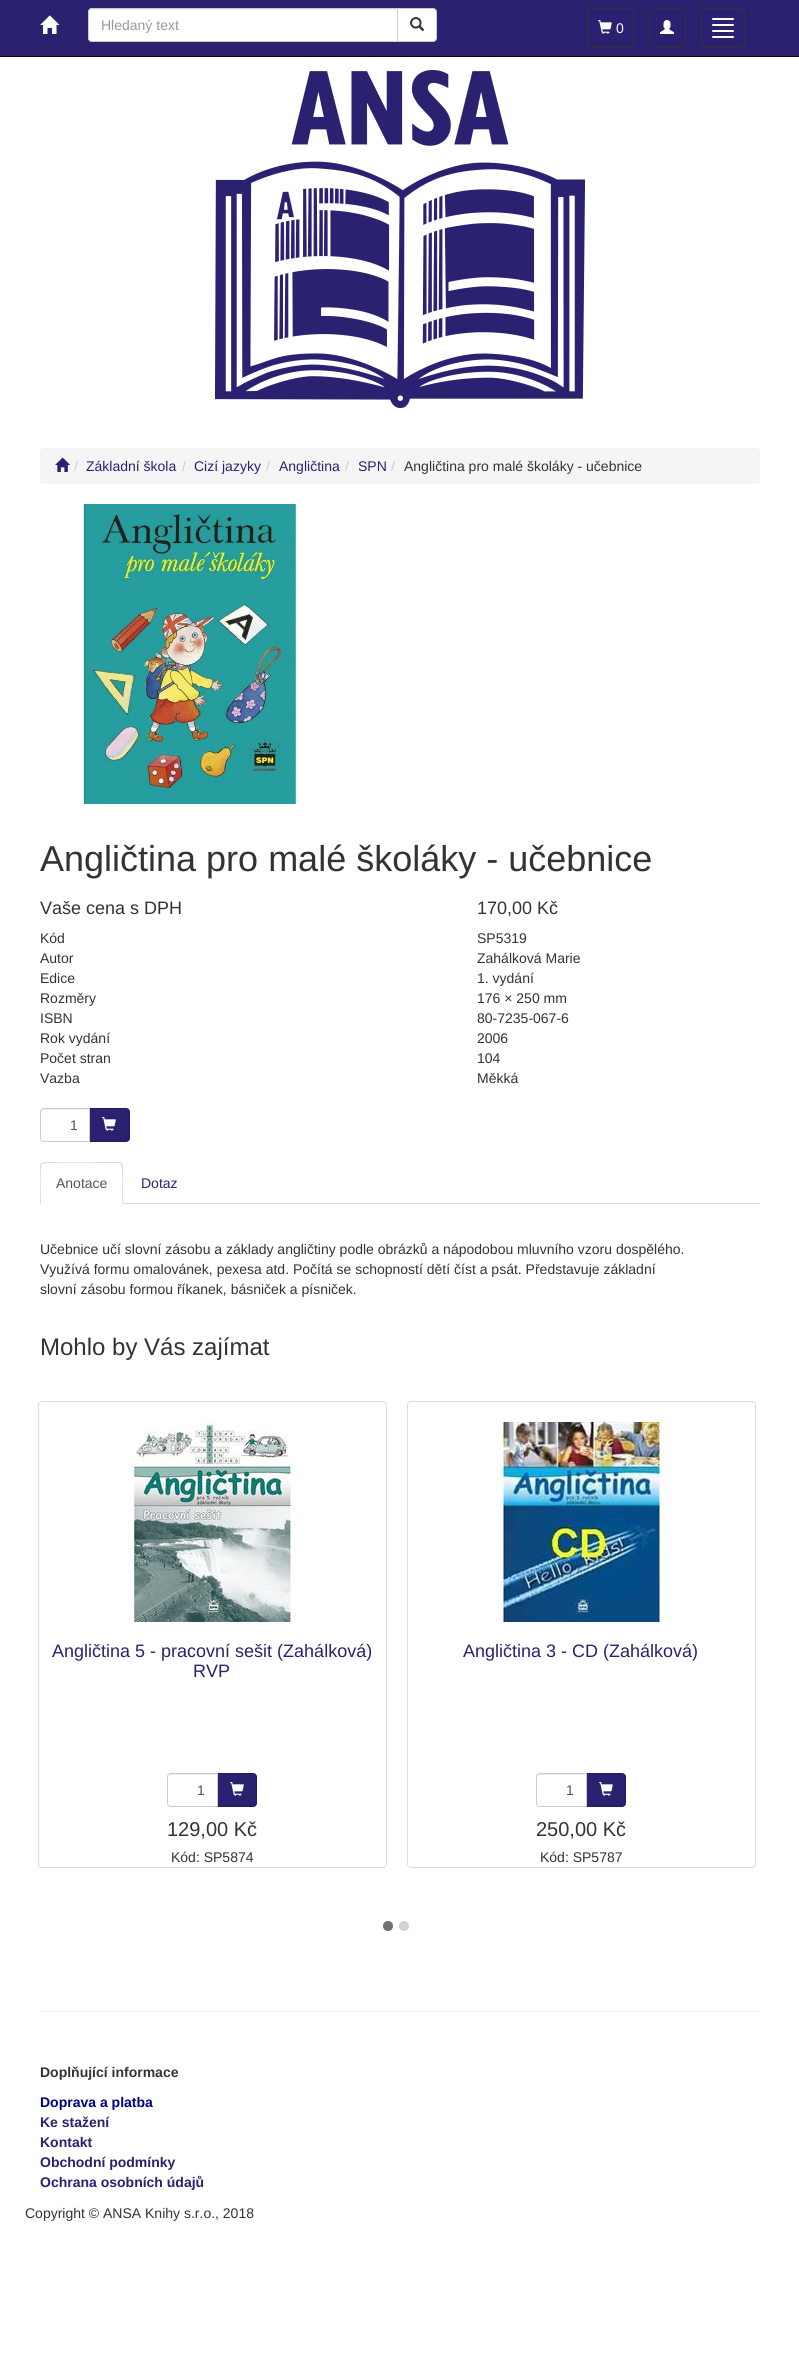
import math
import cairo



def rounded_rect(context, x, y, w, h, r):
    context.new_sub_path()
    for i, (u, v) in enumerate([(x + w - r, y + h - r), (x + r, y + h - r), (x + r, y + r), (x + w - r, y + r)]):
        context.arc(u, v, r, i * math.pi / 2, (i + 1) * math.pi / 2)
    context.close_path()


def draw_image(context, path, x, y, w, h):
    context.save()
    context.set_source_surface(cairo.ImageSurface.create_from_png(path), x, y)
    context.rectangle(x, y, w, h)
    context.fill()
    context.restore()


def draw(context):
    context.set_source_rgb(1, 1, 1)
    context.paint()
    context.set_source_rgb(43 / 255, 33 / 255, 113 / 255)
    context.rectangle(0, 0, 799, 56)
    context.fill()
    context.set_source_rgb(8 / 255, 8 / 255, 8 / 255)
    context.rectangle(0, 56, 799, 1)
    context.fill()
    draw_image(context, "images/1.png", 40, 15, 20, 19)
    context.set_source_rgb(1, 1, 1)
    context.new_path()
    context.move_to(397.5, 8.5)
    context.line_to(433, 8.5)
    context.curve_to(435, 8.5, 436.5, 10, 436.5, 12)
    context.line_to(436.5, 38)
    context.curve_to(436.5, 40, 435, 41.5, 433, 41.5)
    context.line_to(397.5, 41.5)
    context.close_path()
    context.fill_preserve()
    context.set_source_rgb(204 / 255, 204 / 255, 204 / 255)
    context.set_line_width(1)
    context.stroke()
    context.set_source_rgb(1, 1, 1)
    context.new_path()
    context.move_to(92, 8)
    context.line_to(398, 8)
    context.line_to(398, 42)
    context.line_to(92, 42)
    context.curve_to(90, 42, 88, 40, 88, 38)
    context.line_to(88, 12)
    context.curve_to(88, 10, 90, 8, 92, 8)
    context.close_path()
    context.fill()
    context.set_source_rgb(236 / 255, 236 / 255, 236 / 255)
    context.new_path()
    context.move_to(92, 10)
    context.line_to(397, 10)
    context.line_to(397, 9)
    context.line_to(92, 9)
    context.curve_to(90, 9, 89, 11, 89, 13)
    context.curve_to(89, 11, 90, 10, 92, 10)
    context.close_path()
    context.fill()
    context.new_path()
    context.move_to(92, 8.5)
    context.line_to(397.5, 8.5)
    context.line_to(397.5, 41.5)
    context.line_to(92, 41.5)
    context.curve_to(90, 41.5, 88.5, 40, 88.5, 38)
    context.line_to(88.5, 12)
    context.curve_to(88.5, 10, 90, 8.5, 92, 8.5)
    context.close_path()
    context.set_source_rgb(204 / 255, 204 / 255, 204 / 255)
    context.stroke()
    draw_image(context, "images/2.png", 410, 17, 15, 14)
    rounded_rect(context, 587.5, 8.5, 46, 39, 3.5)
    context.set_source_rgb(51 / 255, 51 / 255, 51 / 255)
    context.stroke()
    draw_image(context, "images/3.png", 598, 20, 14, 14)
    rounded_rect(context, 649.5, 8.5, 36, 39, 3.5)
    context.stroke()
    draw_image(context, "images/4.png", 660, 20, 14, 14)
    rounded_rect(context, 701.5, 8.5, 43, 39, 3.5)
    context.stroke()
    context.set_source_rgb(1, 1, 1)
    rounded_rect(context, 712, 18, 22, 2, 1)
    context.fill()
    rounded_rect(context, 712, 24, 22, 2, 1)
    context.fill()
    rounded_rect(context, 712, 30, 22, 2, 1)
    context.fill()
    rounded_rect(context, 712, 36, 22, 2, 1)
    context.fill()
    draw_image(context, "images/5.png", 215, 70, 370, 338)
    context.set_source_rgb(245 / 255, 245 / 255, 245 / 255)
    rounded_rect(context, 40, 448, 720, 36, 4)
    context.fill()
    draw_image(context, "images/6.png", 55, 457, 15, 15)
    draw_image(context, "images/7.png", 83, 504, 219, 300)
    context.set_source_rgb(43 / 255, 33 / 255, 113 / 255)
    context.new_path()
    context.move_to(89.5, 1108.5)
    context.line_to(126, 1108.5)
    context.curve_to(128, 1108.5, 129.5, 1110, 129.5, 1112)
    context.line_to(129.5, 1138)
    context.curve_to(129.5, 1140, 128, 1141.5, 126, 1141.5)
    context.line_to(89.5, 1141.5)
    context.close_path()
    context.fill_preserve()
    context.set_source_rgb(35 / 255, 27 / 255, 93 / 255)
    context.stroke()
    context.set_source_rgb(1, 1, 1)
    context.new_path()
    context.move_to(44, 1108)
    context.line_to(90, 1108)
    context.line_to(90, 1142)
    context.line_to(44, 1142)
    context.curve_to(42, 1142, 40, 1140, 40, 1138)
    context.line_to(40, 1112)
    context.curve_to(40, 1110, 42, 1108, 44, 1108)
    context.close_path()
    context.fill()
    context.set_source_rgb(236 / 255, 236 / 255, 236 / 255)
    context.new_path()
    context.move_to(44, 1110)
    context.line_to(89, 1110)
    context.line_to(89, 1109)
    context.line_to(44, 1109)
    context.curve_to(42, 1109, 41, 1110, 41, 1112)
    context.line_to(41, 1113)
    context.curve_to(41, 1111, 42, 1110, 44, 1110)
    context.close_path()
    context.fill()
    context.new_path()
    context.move_to(44, 1108.5)
    context.line_to(89.5, 1108.5)
    context.line_to(89.5, 1141.5)
    context.line_to(44, 1141.5)
    context.curve_to(42, 1141.5, 40.5, 1140, 40.5, 1138)
    context.line_to(40.5, 1112)
    context.curve_to(40.5, 1110, 42, 1108.5, 44, 1108.5)
    context.close_path()
    context.set_source_rgb(204 / 255, 204 / 255, 204 / 255)
    context.stroke()
    draw_image(context, "images/3.png", 102, 1117, 14, 14)
    context.set_source_rgb(221 / 255, 221 / 255, 221 / 255)
    context.rectangle(123, 1203, 637, 1)
    context.fill()
    context.new_path()
    context.move_to(44, 1162)
    context.line_to(41, 1163)
    context.line_to(42, 1164)
    context.curve_to(44, 1162, 99, 1163, 106, 1163)
    context.line_to(119, 1163)
    context.line_to(121, 1164)
    context.line_to(122, 1163)
    context.line_to(119, 1162)
    context.close_path()
    context.fill()
    context.new_path()
    context.move_to(123, 1204)
    context.line_to(123, 1166)
    context.curve_to(123, 1165, 122, 1164, 122, 1163)
    context.line_to(121, 1164)
    context.curve_to(123, 1166, 122, 1198, 122, 1203)
    context.close_path()
    context.fill()
    context.new_path()
    context.move_to(40, 1204)
    context.line_to(41, 1203)
    context.curve_to(41, 1198, 40, 1166, 42, 1164)
    context.line_to(41, 1163)
    context.line_to(40, 1166)
    context.close_path()
    context.fill()
    rounded_rect(context, 38.5, 1401.5, 348, 466, 3.5)
    context.stroke()
    draw_image(context, "images/8.png", 128, 1422, 168, 200)
    context.set_source_rgb(43 / 255, 33 / 255, 113 / 255)
    context.new_path()
    context.move_to(217.5, 1773.5)
    context.line_to(253, 1773.5)
    context.curve_to(255, 1773.5, 256.5, 1775, 256.5, 1777)
    context.line_to(256.5, 1803)
    context.curve_to(256.5, 1805, 255, 1806.5, 253, 1806.5)
    context.line_to(217.5, 1806.5)
    context.close_path()
    context.fill_preserve()
    context.set_source_rgb(35 / 255, 27 / 255, 93 / 255)
    context.stroke()
    context.set_source_rgb(1, 1, 1)
    context.new_path()
    context.move_to(171, 1773)
    context.line_to(218, 1773)
    context.line_to(218, 1807)
    context.line_to(171, 1807)
    context.curve_to(169, 1807, 167, 1805, 167, 1803)
    context.line_to(167, 1777)
    context.curve_to(167, 1775, 169, 1773, 171, 1773)
    context.close_path()
    context.fill()
    context.set_source_rgb(236 / 255, 236 / 255, 236 / 255)
    context.new_path()
    context.move_to(171, 1775)
    context.line_to(217, 1775)
    context.line_to(217, 1774)
    context.line_to(171, 1774)
    context.curve_to(169, 1774, 168, 1775, 168, 1777)
    context.line_to(168, 1778)
    context.curve_to(168, 1776, 169, 1775, 171, 1775)
    context.close_path()
    context.fill()
    context.new_path()
    context.move_to(171, 1773.5)
    context.line_to(217.5, 1773.5)
    context.line_to(217.5, 1806.5)
    context.line_to(171, 1806.5)
    context.curve_to(169, 1806.5, 167.5, 1805, 167.5, 1803)
    context.line_to(167.5, 1777)
    context.curve_to(167.5, 1775, 169, 1773.5, 171, 1773.5)
    context.close_path()
    context.set_source_rgb(204 / 255, 204 / 255, 204 / 255)
    context.stroke()
    draw_image(context, "images/3.png", 230, 1782, 14, 14)
    rounded_rect(context, 407.5, 1401.5, 348, 466, 3.5)
    context.set_source_rgb(221 / 255, 221 / 255, 221 / 255)
    context.stroke()
    draw_image(context, "images/9.png", 497, 1422, 176, 200)
    context.set_source_rgb(43 / 255, 33 / 255, 113 / 255)
    context.new_path()
    context.move_to(586.5, 1773.5)
    context.line_to(622, 1773.5)
    context.curve_to(624, 1773.5, 625.5, 1775, 625.5, 1777)
    context.line_to(625.5, 1803)
    context.curve_to(625.5, 1805, 624, 1806.5, 622, 1806.5)
    context.line_to(586.5, 1806.5)
    context.close_path()
    context.fill_preserve()
    context.set_source_rgb(35 / 255, 27 / 255, 93 / 255)
    context.stroke()
    context.set_source_rgb(1, 1, 1)
    context.new_path()
    context.move_to(540, 1773)
    context.line_to(587, 1773)
    context.line_to(587, 1807)
    context.line_to(540, 1807)
    context.curve_to(538, 1807, 536, 1805, 536, 1803)
    context.line_to(536, 1777)
    context.curve_to(536, 1775, 538, 1773, 540, 1773)
    context.close_path()
    context.fill()
    context.set_source_rgb(236 / 255, 236 / 255, 236 / 255)
    context.new_path()
    context.move_to(540, 1775)
    context.line_to(586, 1775)
    context.line_to(586, 1774)
    context.line_to(540, 1774)
    context.curve_to(538, 1774, 537, 1775, 537, 1777)
    context.line_to(537, 1778)
    context.curve_to(537, 1776, 538, 1775, 540, 1775)
    context.close_path()
    context.fill()
    context.new_path()
    context.move_to(540, 1773.5)
    context.line_to(586.5, 1773.5)
    context.line_to(586.5, 1806.5)
    context.line_to(540, 1806.5)
    context.curve_to(538, 1806.5, 536.5, 1805, 536.5, 1803)
    context.line_to(536.5, 1777)
    context.curve_to(536.5, 1775, 538, 1773.5, 540, 1773.5)
    context.close_path()
    context.set_source_rgb(204 / 255, 204 / 255, 204 / 255)
    context.stroke()
    draw_image(context, "images/3.png", 599, 1782, 14, 14)
    context.set_source_rgb(112 / 255, 112 / 255, 112 / 255)
    context.arc(388, 1926, 5, 0, 2 * math.pi)
    context.fill()
    context.set_source_rgb(212 / 255, 212 / 255, 212 / 255)
    context.arc(404, 1926, 5, 0, 2 * math.pi)
    context.fill()
    context.set_source_rgb(238 / 255, 238 / 255, 238 / 255)
    context.rectangle(40, 2011, 720, 1)
    context.fill()
    context.select_font_face("Liberation Sans")
    context.set_font_size(14)
    context.set_source_rgb(153 / 255, 153 / 255, 153 / 255)
    context.move_to(101, 30)
    context.show_text("Hledaný text")
    context.set_source_rgb(1, 1, 1)
    context.move_to(616, 33)
    context.show_text("0")
    context.set_source_rgb(204 / 255, 204 / 255, 204 / 255)
    context.move_to(74, 471)
    context.show_text("/")
    context.set_source_rgb(43 / 255, 33 / 255, 113 / 255)
    context.move_to(86, 471)
    context.show_text("Základní škola")
    context.set_source_rgb(204 / 255, 204 / 255, 204 / 255)
    context.move_to(182, 471)
    context.show_text("/")
    context.set_source_rgb(43 / 255, 33 / 255, 113 / 255)
    context.move_to(194, 471)
    context.show_text("Cizí jazyky")
    context.set_source_rgb(204 / 255, 204 / 255, 204 / 255)
    context.move_to(266, 471)
    context.show_text("/")
    context.set_source_rgb(43 / 255, 33 / 255, 113 / 255)
    context.move_to(279, 471)
    context.show_text("Angličtina")
    context.set_source_rgb(204 / 255, 204 / 255, 204 / 255)
    context.move_to(345, 471)
    context.show_text("/")
    context.set_source_rgb(43 / 255, 33 / 255, 113 / 255)
    context.move_to(358, 471)
    context.show_text("SPN")
    context.set_source_rgb(204 / 255, 204 / 255, 204 / 255)
    context.move_to(391, 471)
    context.show_text("/")
    context.set_source_rgb(51 / 255, 51 / 255, 51 / 255)
    context.move_to(404, 471)
    context.show_text("Angličtina pro malé školáky - učebnice")
    context.set_font_size(36)
    context.move_to(40, 871)
    context.show_text("Angličtina pro malé školáky - učebnice")
    context.set_font_size(18)
    context.move_to(40, 914)
    context.show_text("Vaše cena s DPH")
    context.move_to(477, 914)
    context.show_text("170,00 Kč")
    context.set_font_size(14)
    context.move_to(40, 943)
    context.show_text("Kód")
    context.move_to(477, 943)
    context.show_text("SP5319")
    context.move_to(40, 963)
    context.show_text("Autor")
    context.move_to(477, 963)
    context.show_text("Zahálková Marie")
    context.move_to(40, 983)
    context.show_text("Edice")
    context.move_to(477, 983)
    context.show_text("1. vydání")
    context.move_to(40, 1003)
    context.show_text("Rozměry")
    context.move_to(477, 1003)
    context.show_text("176 × 250 mm")
    context.move_to(40, 1023)
    context.show_text("ISBN")
    context.move_to(477, 1023)
    context.show_text("80-7235-067-6")
    context.move_to(40, 1043)
    context.show_text("Rok vydání")
    context.move_to(477, 1043)
    context.show_text("2006")
    context.move_to(40, 1063)
    context.show_text("Počet stran")
    context.move_to(477, 1063)
    context.show_text("104")
    context.move_to(40, 1083)
    context.show_text("Vazba")
    context.move_to(477, 1083)
    context.show_text("Měkká")
    context.set_source_rgb(85 / 255, 85 / 255, 85 / 255)
    context.move_to(70, 1130)
    context.show_text("1")
    context.move_to(56, 1188)
    context.show_text("Anotace")
    context.set_source_rgb(43 / 255, 33 / 255, 113 / 255)
    context.move_to(141, 1188)
    context.show_text("Dotaz")
    context.set_source_rgb(51 / 255, 51 / 255, 51 / 255)
    context.move_to(40, 1254)
    context.show_text("Učebnice učí slovní zásobu a základy angličtiny podle obrázků a nápodobou mluvního vzoru dospělého.")
    context.move_to(40, 1274)
    context.show_text("Využívá formu omalovánek, pexesa atd. Počítá se schopností dětí číst a psát. Představuje základní")
    context.move_to(40, 1294)
    context.show_text("slovní zásobu formou říkanek, básniček a písniček.")
    context.set_font_size(24)
    context.move_to(40, 1355)
    context.show_text("Mohlo by Vás zajímat")
    context.set_font_size(18)
    context.set_source_rgb(43 / 255, 33 / 255, 113 / 255)
    context.move_to(52, 1657)
    context.show_text("Angličtina 5 - pracovní sešit (Zahálková)")
    context.move_to(193, 1677)
    context.show_text("RVP")
    context.set_font_size(14)
    context.set_source_rgb(85 / 255, 85 / 255, 85 / 255)
    context.move_to(197, 1795)
    context.show_text("1")
    context.set_font_size(20)
    context.set_source_rgb(51 / 255, 51 / 255, 51 / 255)
    context.move_to(167, 1836)
    context.show_text("129,00 Kč")
    context.set_font_size(14)
    context.move_to(171, 1862)
    context.show_text("Kód: SP5874")
    context.set_font_size(18)
    context.set_source_rgb(43 / 255, 33 / 255, 113 / 255)
    context.move_to(463, 1657)
    context.show_text("Angličtina 3 - CD (Zahálková)")
    context.set_font_size(14)
    context.set_source_rgb(85 / 255, 85 / 255, 85 / 255)
    context.move_to(566, 1795)
    context.show_text("1")
    context.set_font_size(20)
    context.set_source_rgb(51 / 255, 51 / 255, 51 / 255)
    context.move_to(536, 1836)
    context.show_text("250,00 Kč")
    context.set_font_size(14)
    context.move_to(540, 1862)
    context.show_text("Kód: SP5787")
    context.select_font_face("Liberation Sans", cairo.FontSlant.NORMAL, cairo.FontWeight.BOLD)
    context.move_to(40, 2077)
    context.show_text("Doplňující informace")
    context.set_source_rgb(0, 0, 128 / 255)
    context.move_to(40, 2107)
    context.show_text("Doprava a platba")
    context.set_source_rgb(43 / 255, 33 / 255, 113 / 255)
    context.move_to(40, 2127)
    context.show_text("Ke stažení")
    context.move_to(40, 2147)
    context.show_text("Kontakt")
    context.move_to(40, 2167)
    context.show_text("Obchodní podmínky")
    context.move_to(40, 2187)
    context.show_text("Ochrana osobních údajů")
    context.select_font_face("Liberation Sans")
    context.set_source_rgb(51 / 255, 51 / 255, 51 / 255)
    context.move_to(25, 2218)
    context.show_text("Copyright © ANSA Knihy s.r.o., 2018")


surface = cairo.ImageSurface(cairo.Format.RGB24, 799, 2372)
context = cairo.Context(surface)
options = cairo.FontOptions()
options.set_hint_metrics(cairo.HintMetrics.OFF)
options.set_hint_style(cairo.HintStyle.NONE)
context.set_font_options(options)
context.set_miter_limit(4)
draw(context)
surface.write_to_png("out.png")
